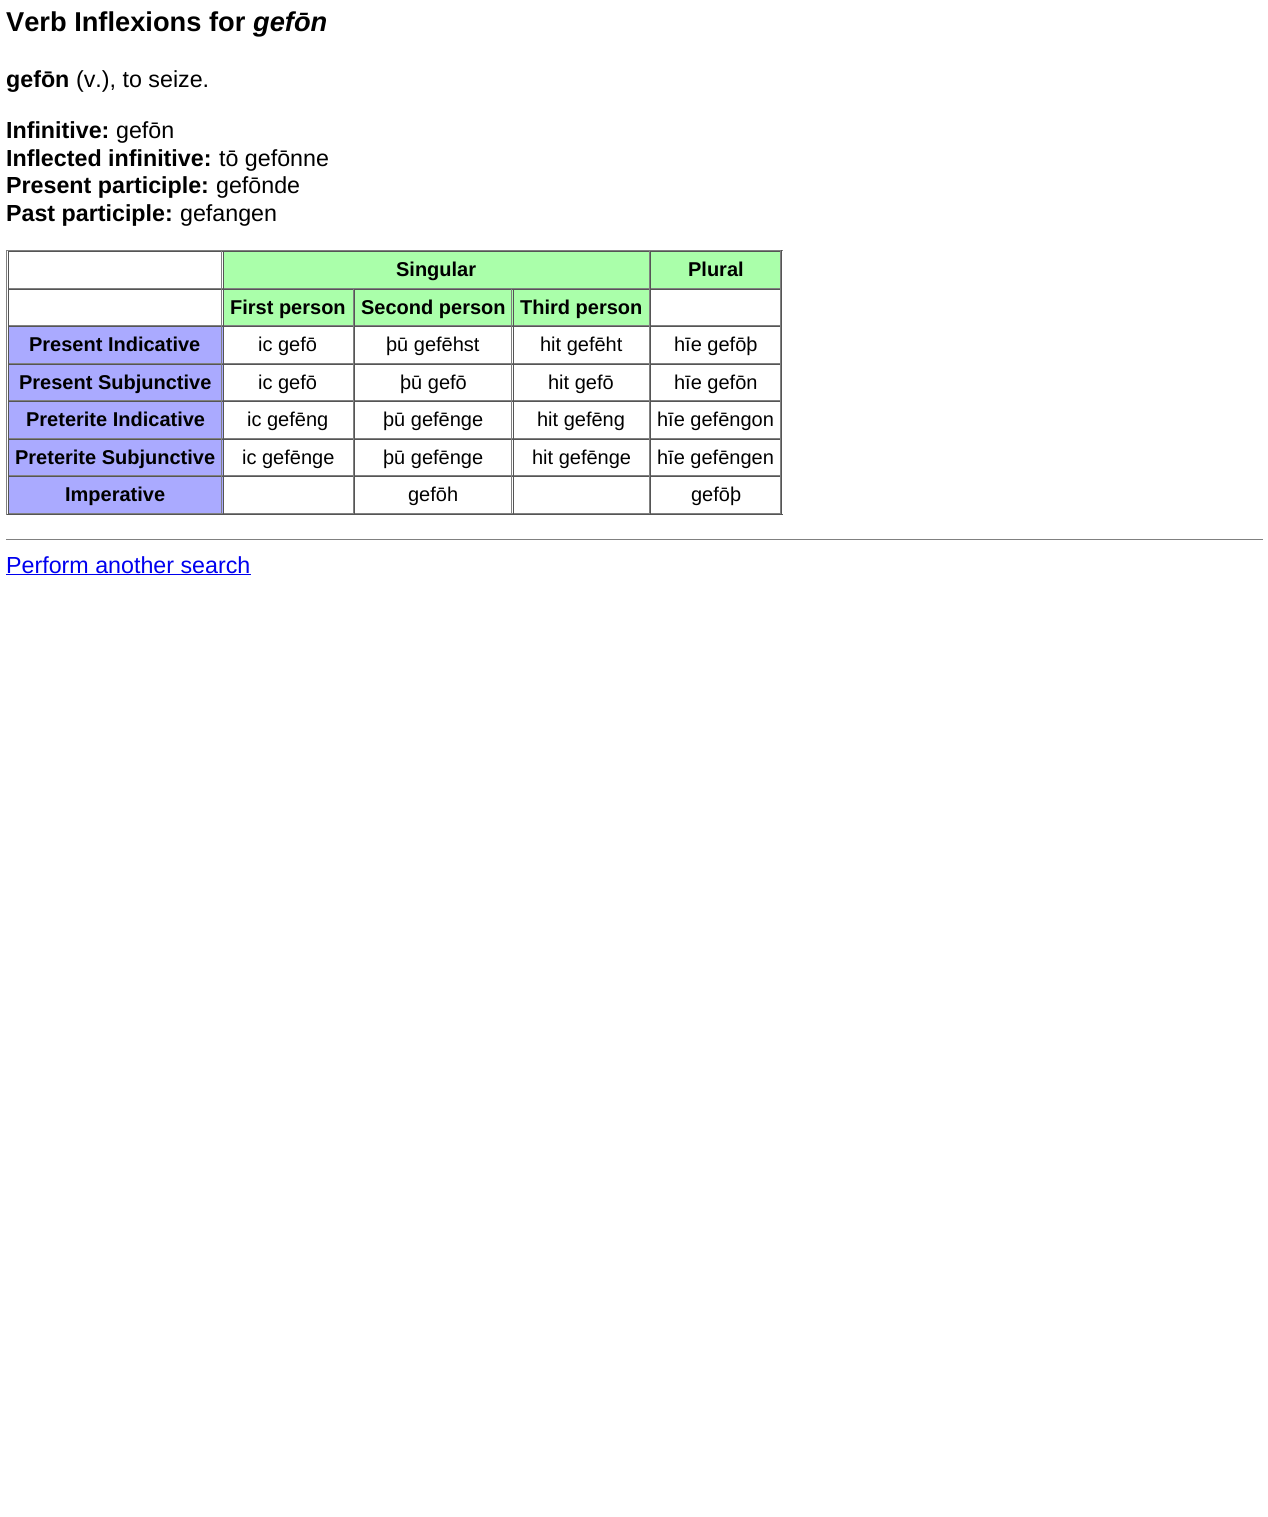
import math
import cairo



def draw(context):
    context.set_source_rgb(1, 1, 1)
    context.paint()
    context.set_source_rgb(128 / 255, 128 / 255, 128 / 255)
    context.rectangle(6, 250, 777, 1)
    context.fill()
    context.set_source_rgb(85 / 255, 85 / 255, 85 / 255)
    context.rectangle(781, 250, 1, 265)
    context.fill()
    context.rectangle(6, 514, 777, 1)
    context.fill()
    context.set_source_rgb(128 / 255, 128 / 255, 128 / 255)
    context.rectangle(6, 250, 1, 265)
    context.fill()
    context.set_source_rgb(85 / 255, 85 / 255, 85 / 255)
    context.rectangle(8, 251, 773, 1)
    context.fill()
    context.set_source_rgb(128 / 255, 128 / 255, 128 / 255)
    context.rectangle(221, 251, 1, 38)
    context.fill()
    context.rectangle(8, 288, 215, 1)
    context.fill()
    context.set_source_rgb(85 / 255, 85 / 255, 85 / 255)
    context.rectangle(8, 251, 1, 38)
    context.fill()
    context.set_source_rgb(170 / 255, 1, 170 / 255)
    context.rectangle(224, 252, 425, 36)
    context.fill()
    context.set_source_rgb(128 / 255, 128 / 255, 128 / 255)
    context.rectangle(649, 251, 1, 38)
    context.fill()
    context.rectangle(223, 288, 427, 1)
    context.fill()
    context.set_source_rgb(85 / 255, 85 / 255, 85 / 255)
    context.rectangle(223, 251, 1, 38)
    context.fill()
    context.set_source_rgb(170 / 255, 1, 170 / 255)
    context.rectangle(651, 252, 129, 36)
    context.fill()
    context.set_source_rgb(128 / 255, 128 / 255, 128 / 255)
    context.rectangle(780, 251, 1, 38)
    context.fill()
    context.rectangle(650, 288, 131, 1)
    context.fill()
    context.set_source_rgb(85 / 255, 85 / 255, 85 / 255)
    context.rectangle(650, 251, 1, 38)
    context.fill()
    context.rectangle(8, 289, 773, 1)
    context.fill()
    context.set_source_rgb(128 / 255, 128 / 255, 128 / 255)
    context.rectangle(221, 289, 1, 37)
    context.fill()
    context.rectangle(8, 325, 215, 1)
    context.fill()
    context.set_source_rgb(85 / 255, 85 / 255, 85 / 255)
    context.rectangle(8, 289, 1, 37)
    context.fill()
    context.set_source_rgb(170 / 255, 1, 170 / 255)
    context.rectangle(224, 290, 129, 35)
    context.fill()
    context.set_source_rgb(128 / 255, 128 / 255, 128 / 255)
    context.rectangle(353, 289, 1, 37)
    context.fill()
    context.rectangle(223, 325, 131, 1)
    context.fill()
    context.set_source_rgb(85 / 255, 85 / 255, 85 / 255)
    context.rectangle(223, 289, 1, 37)
    context.fill()
    context.set_source_rgb(170 / 255, 1, 170 / 255)
    context.rectangle(355, 290, 158, 35)
    context.fill()
    context.set_source_rgb(128 / 255, 128 / 255, 128 / 255)
    context.rectangle(511, 289, 1, 37)
    context.fill()
    context.rectangle(354, 325, 159, 1)
    context.fill()
    context.set_source_rgb(85 / 255, 85 / 255, 85 / 255)
    context.rectangle(354, 289, 1, 37)
    context.fill()
    context.set_source_rgb(170 / 255, 1, 170 / 255)
    context.rectangle(514, 290, 135, 35)
    context.fill()
    context.set_source_rgb(128 / 255, 128 / 255, 128 / 255)
    context.rectangle(649, 289, 1, 37)
    context.fill()
    context.rectangle(513, 325, 137, 1)
    context.fill()
    context.set_source_rgb(85 / 255, 85 / 255, 85 / 255)
    context.rectangle(513, 289, 1, 37)
    context.fill()
    context.set_source_rgb(128 / 255, 128 / 255, 128 / 255)
    context.rectangle(780, 289, 1, 37)
    context.fill()
    context.rectangle(650, 325, 131, 1)
    context.fill()
    context.set_source_rgb(85 / 255, 85 / 255, 85 / 255)
    context.rectangle(650, 289, 1, 37)
    context.fill()
    context.set_source_rgb(170 / 255, 170 / 255, 1)
    context.rectangle(9, 327, 214, 36)
    context.fill()
    context.set_source_rgb(85 / 255, 85 / 255, 85 / 255)
    context.rectangle(8, 326, 773, 1)
    context.fill()
    context.set_source_rgb(128 / 255, 128 / 255, 128 / 255)
    context.rectangle(221, 326, 1, 38)
    context.fill()
    context.rectangle(8, 363, 215, 1)
    context.fill()
    context.set_source_rgb(85 / 255, 85 / 255, 85 / 255)
    context.rectangle(8, 326, 1, 38)
    context.fill()
    context.set_source_rgb(128 / 255, 128 / 255, 128 / 255)
    context.rectangle(353, 326, 1, 38)
    context.fill()
    context.rectangle(223, 363, 131, 1)
    context.fill()
    context.set_source_rgb(85 / 255, 85 / 255, 85 / 255)
    context.rectangle(223, 326, 1, 38)
    context.fill()
    context.set_source_rgb(128 / 255, 128 / 255, 128 / 255)
    context.rectangle(511, 326, 1, 38)
    context.fill()
    context.rectangle(354, 363, 159, 1)
    context.fill()
    context.set_source_rgb(85 / 255, 85 / 255, 85 / 255)
    context.rectangle(354, 326, 1, 38)
    context.fill()
    context.set_source_rgb(128 / 255, 128 / 255, 128 / 255)
    context.rectangle(649, 326, 1, 38)
    context.fill()
    context.rectangle(513, 363, 137, 1)
    context.fill()
    context.set_source_rgb(85 / 255, 85 / 255, 85 / 255)
    context.rectangle(513, 326, 1, 38)
    context.fill()
    context.set_source_rgb(128 / 255, 128 / 255, 128 / 255)
    context.rectangle(780, 326, 1, 38)
    context.fill()
    context.rectangle(650, 363, 131, 1)
    context.fill()
    context.set_source_rgb(85 / 255, 85 / 255, 85 / 255)
    context.rectangle(650, 326, 1, 38)
    context.fill()
    context.set_source_rgb(170 / 255, 170 / 255, 1)
    context.rectangle(9, 365, 214, 35)
    context.fill()
    context.set_source_rgb(85 / 255, 85 / 255, 85 / 255)
    context.rectangle(8, 364, 773, 1)
    context.fill()
    context.set_source_rgb(128 / 255, 128 / 255, 128 / 255)
    context.rectangle(221, 364, 1, 37)
    context.fill()
    context.rectangle(8, 400, 215, 1)
    context.fill()
    context.set_source_rgb(85 / 255, 85 / 255, 85 / 255)
    context.rectangle(8, 364, 1, 37)
    context.fill()
    context.set_source_rgb(128 / 255, 128 / 255, 128 / 255)
    context.rectangle(353, 364, 1, 37)
    context.fill()
    context.rectangle(223, 400, 131, 1)
    context.fill()
    context.set_source_rgb(85 / 255, 85 / 255, 85 / 255)
    context.rectangle(223, 364, 1, 37)
    context.fill()
    context.set_source_rgb(128 / 255, 128 / 255, 128 / 255)
    context.rectangle(511, 364, 1, 37)
    context.fill()
    context.rectangle(354, 400, 159, 1)
    context.fill()
    context.set_source_rgb(85 / 255, 85 / 255, 85 / 255)
    context.rectangle(354, 364, 1, 37)
    context.fill()
    context.set_source_rgb(128 / 255, 128 / 255, 128 / 255)
    context.rectangle(649, 364, 1, 37)
    context.fill()
    context.rectangle(513, 400, 137, 1)
    context.fill()
    context.set_source_rgb(85 / 255, 85 / 255, 85 / 255)
    context.rectangle(513, 364, 1, 37)
    context.fill()
    context.set_source_rgb(128 / 255, 128 / 255, 128 / 255)
    context.rectangle(780, 364, 1, 37)
    context.fill()
    context.rectangle(650, 400, 131, 1)
    context.fill()
    context.set_source_rgb(85 / 255, 85 / 255, 85 / 255)
    context.rectangle(650, 364, 1, 37)
    context.fill()
    context.set_source_rgb(170 / 255, 170 / 255, 1)
    context.rectangle(9, 402, 214, 36)
    context.fill()
    context.set_source_rgb(85 / 255, 85 / 255, 85 / 255)
    context.rectangle(8, 401, 773, 1)
    context.fill()
    context.set_source_rgb(128 / 255, 128 / 255, 128 / 255)
    context.rectangle(221, 401, 1, 38)
    context.fill()
    context.rectangle(8, 438, 215, 1)
    context.fill()
    context.set_source_rgb(85 / 255, 85 / 255, 85 / 255)
    context.rectangle(8, 401, 1, 38)
    context.fill()
    context.set_source_rgb(128 / 255, 128 / 255, 128 / 255)
    context.rectangle(353, 401, 1, 38)
    context.fill()
    context.rectangle(223, 438, 131, 1)
    context.fill()
    context.set_source_rgb(85 / 255, 85 / 255, 85 / 255)
    context.rectangle(223, 401, 1, 38)
    context.fill()
    context.set_source_rgb(128 / 255, 128 / 255, 128 / 255)
    context.rectangle(511, 401, 1, 38)
    context.fill()
    context.rectangle(354, 438, 159, 1)
    context.fill()
    context.set_source_rgb(85 / 255, 85 / 255, 85 / 255)
    context.rectangle(354, 401, 1, 38)
    context.fill()
    context.set_source_rgb(128 / 255, 128 / 255, 128 / 255)
    context.rectangle(649, 401, 1, 38)
    context.fill()
    context.rectangle(513, 438, 137, 1)
    context.fill()
    context.set_source_rgb(85 / 255, 85 / 255, 85 / 255)
    context.rectangle(513, 401, 1, 38)
    context.fill()
    context.set_source_rgb(128 / 255, 128 / 255, 128 / 255)
    context.rectangle(780, 401, 1, 38)
    context.fill()
    context.rectangle(650, 438, 131, 1)
    context.fill()
    context.set_source_rgb(85 / 255, 85 / 255, 85 / 255)
    context.rectangle(650, 401, 1, 38)
    context.fill()
    context.set_source_rgb(170 / 255, 170 / 255, 1)
    context.rectangle(9, 440, 214, 35)
    context.fill()
    context.set_source_rgb(85 / 255, 85 / 255, 85 / 255)
    context.rectangle(8, 439, 773, 1)
    context.fill()
    context.set_source_rgb(128 / 255, 128 / 255, 128 / 255)
    context.rectangle(221, 439, 1, 37)
    context.fill()
    context.rectangle(8, 475, 215, 1)
    context.fill()
    context.set_source_rgb(85 / 255, 85 / 255, 85 / 255)
    context.rectangle(8, 439, 1, 37)
    context.fill()
    context.set_source_rgb(128 / 255, 128 / 255, 128 / 255)
    context.rectangle(353, 439, 1, 37)
    context.fill()
    context.rectangle(223, 475, 131, 1)
    context.fill()
    context.set_source_rgb(85 / 255, 85 / 255, 85 / 255)
    context.rectangle(223, 439, 1, 37)
    context.fill()
    context.set_source_rgb(128 / 255, 128 / 255, 128 / 255)
    context.rectangle(511, 439, 1, 37)
    context.fill()
    context.rectangle(354, 475, 159, 1)
    context.fill()
    context.set_source_rgb(85 / 255, 85 / 255, 85 / 255)
    context.rectangle(354, 439, 1, 37)
    context.fill()
    context.set_source_rgb(128 / 255, 128 / 255, 128 / 255)
    context.rectangle(649, 439, 1, 37)
    context.fill()
    context.rectangle(513, 475, 137, 1)
    context.fill()
    context.set_source_rgb(85 / 255, 85 / 255, 85 / 255)
    context.rectangle(513, 439, 1, 37)
    context.fill()
    context.set_source_rgb(128 / 255, 128 / 255, 128 / 255)
    context.rectangle(780, 439, 1, 37)
    context.fill()
    context.rectangle(650, 475, 131, 1)
    context.fill()
    context.set_source_rgb(85 / 255, 85 / 255, 85 / 255)
    context.rectangle(650, 439, 1, 37)
    context.fill()
    context.set_source_rgb(170 / 255, 170 / 255, 1)
    context.rectangle(9, 477, 214, 36)
    context.fill()
    context.set_source_rgb(85 / 255, 85 / 255, 85 / 255)
    context.rectangle(8, 476, 773, 1)
    context.fill()
    context.set_source_rgb(128 / 255, 128 / 255, 128 / 255)
    context.rectangle(221, 476, 1, 38)
    context.fill()
    context.rectangle(8, 513, 215, 1)
    context.fill()
    context.set_source_rgb(85 / 255, 85 / 255, 85 / 255)
    context.rectangle(8, 476, 1, 38)
    context.fill()
    context.set_source_rgb(128 / 255, 128 / 255, 128 / 255)
    context.rectangle(353, 476, 1, 38)
    context.fill()
    context.rectangle(223, 513, 131, 1)
    context.fill()
    context.set_source_rgb(85 / 255, 85 / 255, 85 / 255)
    context.rectangle(223, 476, 1, 38)
    context.fill()
    context.set_source_rgb(128 / 255, 128 / 255, 128 / 255)
    context.rectangle(511, 476, 1, 38)
    context.fill()
    context.rectangle(354, 513, 159, 1)
    context.fill()
    context.set_source_rgb(85 / 255, 85 / 255, 85 / 255)
    context.rectangle(354, 476, 1, 38)
    context.fill()
    context.set_source_rgb(128 / 255, 128 / 255, 128 / 255)
    context.rectangle(649, 476, 1, 38)
    context.fill()
    context.rectangle(513, 513, 137, 1)
    context.fill()
    context.set_source_rgb(85 / 255, 85 / 255, 85 / 255)
    context.rectangle(513, 476, 1, 38)
    context.fill()
    context.set_source_rgb(128 / 255, 128 / 255, 128 / 255)
    context.rectangle(780, 476, 1, 38)
    context.fill()
    context.rectangle(650, 513, 131, 1)
    context.fill()
    context.set_source_rgb(85 / 255, 85 / 255, 85 / 255)
    context.rectangle(650, 476, 1, 38)
    context.fill()
    context.set_source_rgb(128 / 255, 128 / 255, 128 / 255)
    context.rectangle(6, 539, 1257, 1)
    context.fill()
    context.set_source_rgb(0, 0, 238 / 255)
    context.rectangle(6, 574, 245, 1)
    context.fill()
    context.select_font_face("Liberation Sans", cairo.FontSlant.NORMAL, cairo.FontWeight.BOLD)
    context.set_font_size(27.25)
    context.set_source_rgb(0, 0, 0)
    context.move_to(6, 31)
    context.show_text("Verb Inflexions for")
    context.select_font_face("Liberation Sans", cairo.FontSlant.ITALIC, cairo.FontWeight.BOLD)
    context.move_to(253, 31)
    context.show_text("gefōn")
    context.select_font_face("Liberation Sans", cairo.FontSlant.NORMAL, cairo.FontWeight.BOLD)
    context.set_font_size(23.25)
    context.move_to(6, 87)
    context.show_text("gefōn")
    context.select_font_face("Liberation Sans")
    context.move_to(76, 87)
    context.show_text("(v.), to seize.")
    context.select_font_face("Liberation Sans", cairo.FontSlant.NORMAL, cairo.FontWeight.BOLD)
    context.move_to(6, 138)
    context.show_text("Infinitive:")
    context.select_font_face("Liberation Sans")
    context.move_to(116, 138)
    context.show_text("gefōn")
    context.select_font_face("Liberation Sans", cairo.FontSlant.NORMAL, cairo.FontWeight.BOLD)
    context.move_to(6, 166)
    context.show_text("Inflected infinitive:")
    context.select_font_face("Liberation Sans")
    context.move_to(219, 166)
    context.show_text("tō gefōnne")
    context.select_font_face("Liberation Sans", cairo.FontSlant.NORMAL, cairo.FontWeight.BOLD)
    context.move_to(6, 193)
    context.show_text("Present participle:")
    context.select_font_face("Liberation Sans")
    context.move_to(216, 193)
    context.show_text("gefōnde")
    context.select_font_face("Liberation Sans", cairo.FontSlant.NORMAL, cairo.FontWeight.BOLD)
    context.move_to(6, 221)
    context.show_text("Past participle:")
    context.select_font_face("Liberation Sans")
    context.move_to(180, 221)
    context.show_text("gefangen")
    context.select_font_face("Liberation Sans", cairo.FontSlant.NORMAL, cairo.FontWeight.BOLD)
    context.set_font_size(20)
    context.move_to(396, 276)
    context.show_text("Singular")
    context.move_to(688, 276)
    context.show_text("Plural")
    context.move_to(230, 314)
    context.show_text("First person")
    context.move_to(361, 314)
    context.show_text("Second person")
    context.move_to(520, 314)
    context.show_text("Third person")
    context.move_to(29, 351)
    context.show_text("Present Indicative")
    context.select_font_face("Liberation Sans")
    context.move_to(258, 351)
    context.show_text("ic gefō")
    context.move_to(386, 351)
    context.show_text("þū gefēhst")
    context.move_to(540, 351)
    context.show_text("hit gefēht")
    context.move_to(674, 351)
    context.show_text("hīe gefōþ")
    context.select_font_face("Liberation Sans", cairo.FontSlant.NORMAL, cairo.FontWeight.BOLD)
    context.move_to(19, 389)
    context.show_text("Present Subjunctive")
    context.select_font_face("Liberation Sans")
    context.move_to(258, 389)
    context.show_text("ic gefō")
    context.move_to(400, 389)
    context.show_text("þū gefō")
    context.move_to(548, 389)
    context.show_text("hit gefō")
    context.move_to(674, 389)
    context.show_text("hīe gefōn")
    context.select_font_face("Liberation Sans", cairo.FontSlant.NORMAL, cairo.FontWeight.BOLD)
    context.move_to(26, 426)
    context.show_text("Preterite Indicative")
    context.select_font_face("Liberation Sans")
    context.move_to(247, 426)
    context.show_text("ic gefēng")
    context.move_to(383, 426)
    context.show_text("þū gefēnge")
    context.move_to(537, 426)
    context.show_text("hit gefēng")
    context.move_to(657, 426)
    context.show_text("hīe gefēngon")
    context.select_font_face("Liberation Sans", cairo.FontSlant.NORMAL, cairo.FontWeight.BOLD)
    context.move_to(15, 464)
    context.show_text("Preterite Subjunctive")
    context.select_font_face("Liberation Sans")
    context.move_to(242, 464)
    context.show_text("ic gefēnge")
    context.move_to(383, 464)
    context.show_text("þū gefēnge")
    context.move_to(532, 464)
    context.show_text("hit gefēnge")
    context.move_to(657, 464)
    context.show_text("hīe gefēngen")
    context.select_font_face("Liberation Sans", cairo.FontSlant.NORMAL, cairo.FontWeight.BOLD)
    context.move_to(65, 501)
    context.show_text("Imperative")
    context.select_font_face("Liberation Sans")
    context.move_to(408, 501)
    context.show_text("gefōh")
    context.move_to(691, 501)
    context.show_text("gefōþ")
    context.set_font_size(23.25)
    context.set_source_rgb(0, 0, 238 / 255)
    context.move_to(6, 573)
    context.show_text("Perform another search")


surface = cairo.ImageSurface(cairo.Format.RGB24, 1268, 1517)
context = cairo.Context(surface)
options = cairo.FontOptions()
options.set_hint_metrics(cairo.HintMetrics.OFF)
options.set_hint_style(cairo.HintStyle.NONE)
context.set_font_options(options)
context.set_miter_limit(4)
draw(context)
surface.write_to_png("out.png")
